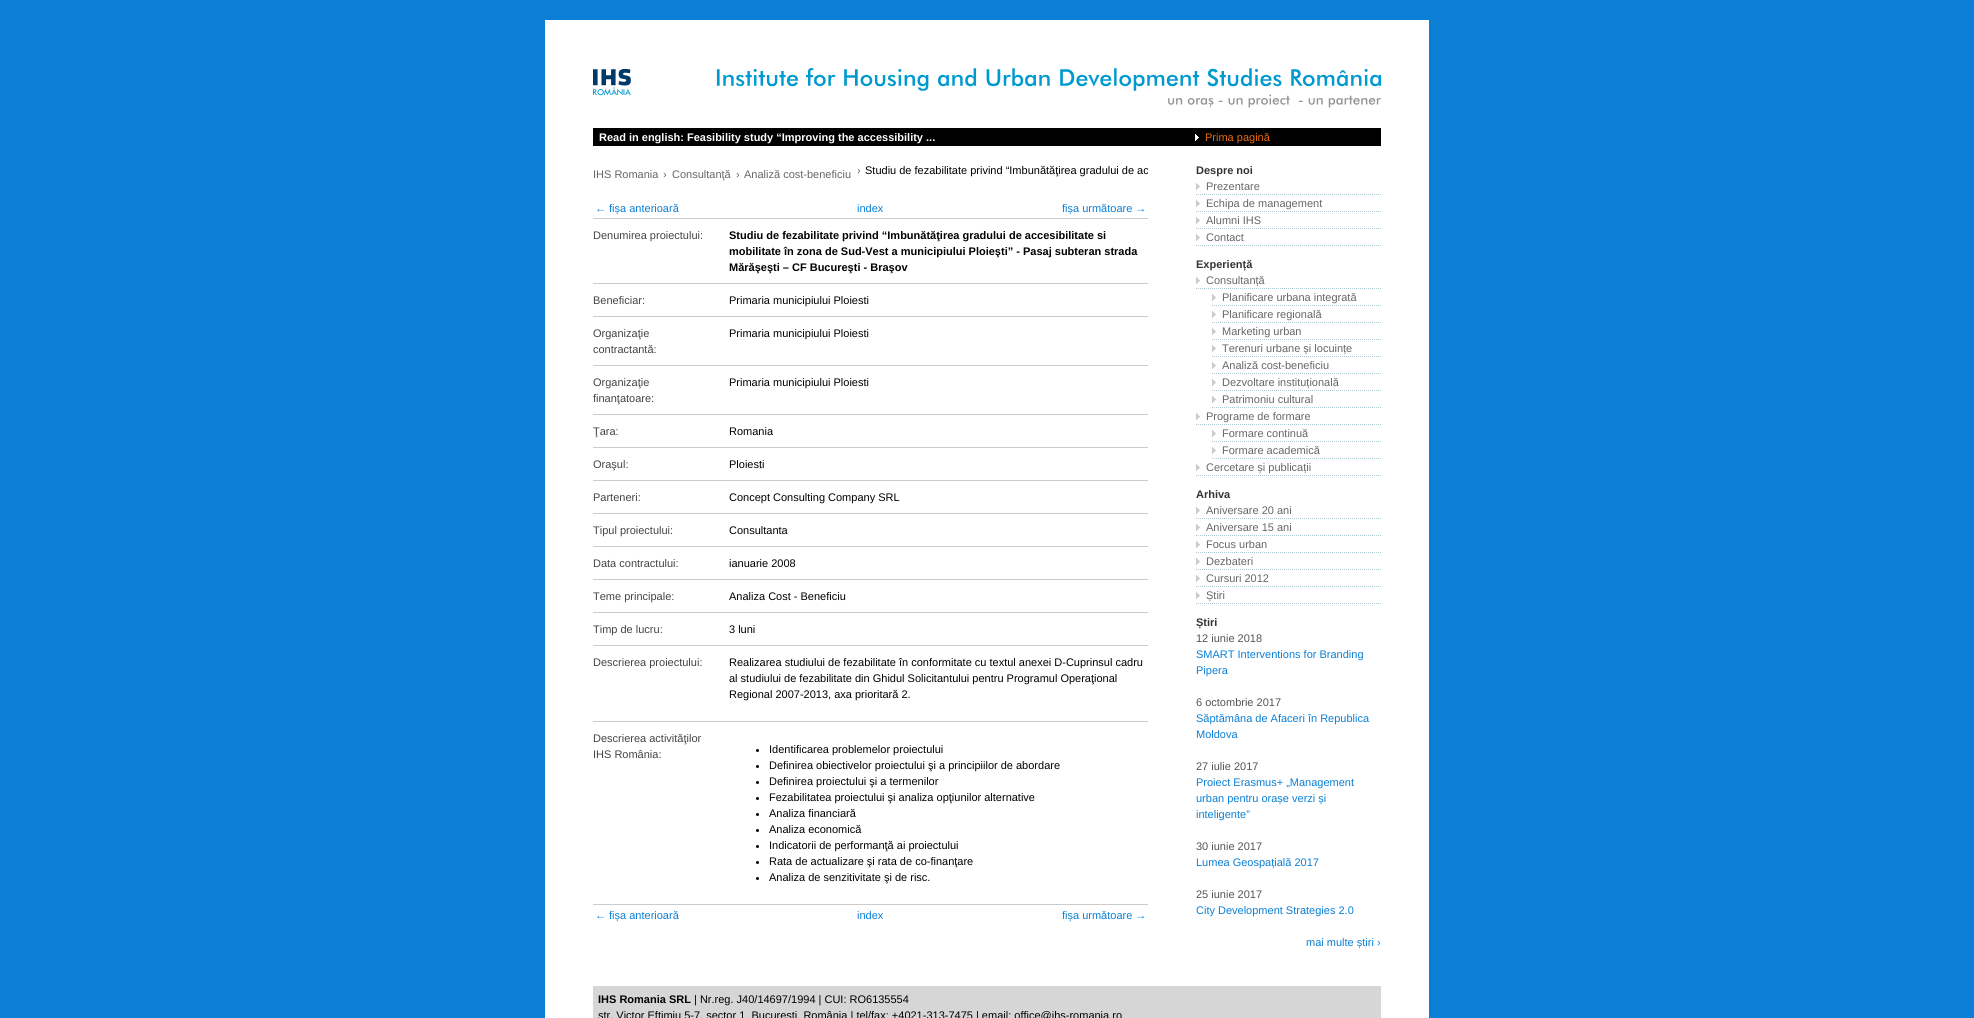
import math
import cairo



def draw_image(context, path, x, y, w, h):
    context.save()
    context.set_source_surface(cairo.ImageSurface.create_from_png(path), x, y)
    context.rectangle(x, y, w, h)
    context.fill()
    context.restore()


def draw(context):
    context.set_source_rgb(10 / 255, 127 / 255, 213 / 255)
    context.paint()
    context.set_source_rgb(1, 1, 1)
    context.rectangle(545, 20, 884, 998)
    context.fill()
    draw_image(context, "images/1.png", 593, 68, 788, 40)
    context.set_source_rgb(0, 0, 0)
    context.rectangle(593, 128, 788, 18)
    context.fill()
    draw_image(context, "images/2.png", 1195, 134, 4, 7)
    context.set_source_rgb(204 / 255, 204 / 255, 204 / 255)
    context.rectangle(593, 218, 555, 1)
    context.fill()
    context.rectangle(593, 283, 555, 1)
    context.fill()
    context.rectangle(593, 316, 555, 1)
    context.fill()
    context.rectangle(593, 365, 555, 1)
    context.fill()
    context.rectangle(593, 414, 555, 1)
    context.fill()
    context.rectangle(593, 447, 555, 1)
    context.fill()
    context.rectangle(593, 480, 555, 1)
    context.fill()
    context.rectangle(593, 513, 555, 1)
    context.fill()
    context.rectangle(593, 546, 555, 1)
    context.fill()
    context.rectangle(593, 579, 555, 1)
    context.fill()
    context.rectangle(593, 612, 555, 1)
    context.fill()
    context.rectangle(593, 645, 555, 1)
    context.fill()
    context.rectangle(593, 721, 555, 1)
    context.fill()
    context.rectangle(593, 904, 555, 1)
    context.fill()
    context.set_source_rgb(0, 0, 0)
    context.arc(757.5, 750.5, 1.5, 0, 2 * math.pi)
    context.fill()
    context.arc(757.5, 766.5, 1.5, 0, 2 * math.pi)
    context.fill()
    context.arc(757.5, 782.5, 1.5, 0, 2 * math.pi)
    context.fill()
    context.arc(757.5, 798.5, 1.5, 0, 2 * math.pi)
    context.fill()
    context.arc(757.5, 814.5, 1.5, 0, 2 * math.pi)
    context.fill()
    context.arc(757.5, 830.5, 1.5, 0, 2 * math.pi)
    context.fill()
    context.arc(757.5, 846.5, 1.5, 0, 2 * math.pi)
    context.fill()
    context.arc(757.5, 862.5, 1.5, 0, 2 * math.pi)
    context.fill()
    context.arc(757.5, 878.5, 1.5, 0, 2 * math.pi)
    context.fill()
    draw_image(context, "images/3.png", 1196, 183, 4, 7)
    context.new_path()
    context.move_to(1196, 194.5)
    context.line_to(1381, 194.5)
    context.set_source_rgb(172 / 255, 203 / 255, 206 / 255)
    context.set_line_width(1)
    context.set_dash([1, 1])
    context.stroke()
    draw_image(context, "images/3.png", 1196, 200, 4, 7)
    context.new_path()
    context.move_to(1196, 211.5)
    context.line_to(1381, 211.5)
    context.stroke()
    draw_image(context, "images/3.png", 1196, 217, 4, 7)
    context.new_path()
    context.move_to(1196, 228.5)
    context.line_to(1381, 228.5)
    context.stroke()
    draw_image(context, "images/3.png", 1196, 234, 4, 7)
    context.new_path()
    context.move_to(1196, 245.5)
    context.line_to(1381, 245.5)
    context.stroke()
    draw_image(context, "images/3.png", 1196, 277, 4, 7)
    context.new_path()
    context.move_to(1196, 288.5)
    context.line_to(1381, 288.5)
    context.stroke()
    draw_image(context, "images/3.png", 1212, 294, 4, 7)
    context.new_path()
    context.move_to(1212, 305.5)
    context.line_to(1381, 305.5)
    context.stroke()
    draw_image(context, "images/3.png", 1212, 311, 4, 7)
    context.new_path()
    context.move_to(1212, 322.5)
    context.line_to(1381, 322.5)
    context.stroke()
    draw_image(context, "images/3.png", 1212, 328, 4, 7)
    context.new_path()
    context.move_to(1212, 339.5)
    context.line_to(1381, 339.5)
    context.stroke()
    draw_image(context, "images/3.png", 1212, 345, 4, 7)
    context.new_path()
    context.move_to(1212, 356.5)
    context.line_to(1381, 356.5)
    context.stroke()
    draw_image(context, "images/3.png", 1212, 362, 4, 7)
    context.new_path()
    context.move_to(1212, 373.5)
    context.line_to(1381, 373.5)
    context.stroke()
    draw_image(context, "images/3.png", 1212, 379, 4, 7)
    context.new_path()
    context.move_to(1212, 390.5)
    context.line_to(1381, 390.5)
    context.stroke()
    draw_image(context, "images/3.png", 1212, 396, 4, 7)
    context.new_path()
    context.move_to(1212, 407.5)
    context.line_to(1381, 407.5)
    context.stroke()
    draw_image(context, "images/3.png", 1196, 413, 4, 7)
    context.new_path()
    context.move_to(1196, 424.5)
    context.line_to(1381, 424.5)
    context.stroke()
    draw_image(context, "images/3.png", 1212, 430, 4, 7)
    context.new_path()
    context.move_to(1212, 441.5)
    context.line_to(1381, 441.5)
    context.stroke()
    draw_image(context, "images/3.png", 1212, 447, 4, 7)
    context.new_path()
    context.move_to(1212, 458.5)
    context.line_to(1381, 458.5)
    context.stroke()
    draw_image(context, "images/3.png", 1196, 464, 4, 7)
    context.new_path()
    context.move_to(1196, 475.5)
    context.line_to(1381, 475.5)
    context.stroke()
    draw_image(context, "images/3.png", 1196, 507, 4, 7)
    context.new_path()
    context.move_to(1196, 518.5)
    context.line_to(1381, 518.5)
    context.stroke()
    draw_image(context, "images/3.png", 1196, 524, 4, 7)
    context.new_path()
    context.move_to(1196, 535.5)
    context.line_to(1381, 535.5)
    context.stroke()
    draw_image(context, "images/3.png", 1196, 541, 4, 7)
    context.new_path()
    context.move_to(1196, 552.5)
    context.line_to(1381, 552.5)
    context.stroke()
    draw_image(context, "images/3.png", 1196, 558, 4, 7)
    context.new_path()
    context.move_to(1196, 569.5)
    context.line_to(1381, 569.5)
    context.stroke()
    draw_image(context, "images/3.png", 1196, 575, 4, 7)
    context.new_path()
    context.move_to(1196, 586.5)
    context.line_to(1381, 586.5)
    context.stroke()
    draw_image(context, "images/3.png", 1196, 592, 4, 7)
    context.new_path()
    context.move_to(1196, 603.5)
    context.line_to(1381, 603.5)
    context.stroke()
    context.set_source_rgb(214 / 255, 214 / 255, 214 / 255)
    context.rectangle(593, 986, 788, 32)
    context.fill()
    context.select_font_face("Liberation Sans", cairo.FontSlant.NORMAL, cairo.FontWeight.BOLD)
    context.set_font_size(11)
    context.set_source_rgb(1, 1, 1)
    context.move_to(599, 141)
    context.show_text("Read in english: Feasibility study “Improving the accessibility ...")
    context.select_font_face("Liberation Sans")
    context.set_source_rgb(233 / 255, 108 / 255, 18 / 255)
    context.move_to(1205, 141)
    context.show_text("Prima pagină")
    context.set_source_rgb(102 / 255, 102 / 255, 102 / 255)
    context.move_to(593, 178)
    context.show_text("IHS Romania")
    context.move_to(663, 178)
    context.show_text("›")
    context.move_to(672, 178)
    context.show_text("Consultanţă")
    context.move_to(736, 178)
    context.show_text("›")
    context.move_to(744, 178)
    context.show_text("Analiză cost-beneficiu")
    context.move_to(857, 174)
    context.show_text("›")
    context.save()
    context.rectangle(852, 162, 296, 16)
    context.clip()
    context.set_source_rgb(0, 0, 0)
    context.move_to(865, 174)
    context.show_text("Studiu de fezabilitate privind “Imbunătăţirea gradului de ac")
    context.restore()
    context.set_source_rgb(10 / 255, 127 / 255, 213 / 255)
    context.move_to(595, 212)
    context.show_text("← fișa anterioară")
    context.move_to(857, 212)
    context.show_text("index")
    context.move_to(1062, 212)
    context.show_text("fișa următoare →")
    context.set_source_rgb(68 / 255, 68 / 255, 68 / 255)
    context.move_to(593, 239)
    context.show_text("Denumirea proiectului:")
    context.select_font_face("Liberation Sans", cairo.FontSlant.NORMAL, cairo.FontWeight.BOLD)
    context.set_source_rgb(0, 0, 0)
    context.move_to(729, 239)
    context.show_text("Studiu de fezabilitate privind “Imbunătăţirea gradului de accesibilitate si")
    context.move_to(729, 255)
    context.show_text("mobilitate în zona de Sud-Vest a municipiului Ploieşti” - Pasaj subteran strada")
    context.move_to(729, 271)
    context.show_text("Mărăşeşti – CF Bucureşti - Braşov")
    context.select_font_face("Liberation Sans")
    context.set_source_rgb(68 / 255, 68 / 255, 68 / 255)
    context.move_to(593, 304)
    context.show_text("Beneficiar:")
    context.set_source_rgb(0, 0, 0)
    context.move_to(729, 304)
    context.show_text("Primaria municipiului Ploiesti")
    context.set_source_rgb(68 / 255, 68 / 255, 68 / 255)
    context.move_to(593, 337)
    context.show_text("Organizaţie")
    context.move_to(593, 353)
    context.show_text("contractantă:")
    context.set_source_rgb(0, 0, 0)
    context.move_to(729, 337)
    context.show_text("Primaria municipiului Ploiesti")
    context.set_source_rgb(68 / 255, 68 / 255, 68 / 255)
    context.move_to(593, 386)
    context.show_text("Organizaţie")
    context.move_to(593, 402)
    context.show_text("finanţatoare:")
    context.set_source_rgb(0, 0, 0)
    context.move_to(729, 386)
    context.show_text("Primaria municipiului Ploiesti")
    context.set_source_rgb(68 / 255, 68 / 255, 68 / 255)
    context.move_to(593, 435)
    context.show_text("Ţara:")
    context.set_source_rgb(0, 0, 0)
    context.move_to(729, 435)
    context.show_text("Romania")
    context.set_source_rgb(68 / 255, 68 / 255, 68 / 255)
    context.move_to(593, 468)
    context.show_text("Oraşul:")
    context.set_source_rgb(0, 0, 0)
    context.move_to(729, 468)
    context.show_text("Ploiesti")
    context.set_source_rgb(68 / 255, 68 / 255, 68 / 255)
    context.move_to(593, 501)
    context.show_text("Parteneri:")
    context.set_source_rgb(0, 0, 0)
    context.move_to(729, 501)
    context.show_text("Concept Consulting Company SRL")
    context.set_source_rgb(68 / 255, 68 / 255, 68 / 255)
    context.move_to(593, 534)
    context.show_text("Tipul proiectului:")
    context.set_source_rgb(0, 0, 0)
    context.move_to(729, 534)
    context.show_text("Consultanta")
    context.set_source_rgb(68 / 255, 68 / 255, 68 / 255)
    context.move_to(593, 567)
    context.show_text("Data contractului:")
    context.set_source_rgb(0, 0, 0)
    context.move_to(729, 567)
    context.show_text("ianuarie 2008")
    context.set_source_rgb(68 / 255, 68 / 255, 68 / 255)
    context.move_to(593, 600)
    context.show_text("Teme principale:")
    context.set_source_rgb(0, 0, 0)
    context.move_to(729, 600)
    context.show_text("Analiza Cost - Beneficiu")
    context.set_source_rgb(68 / 255, 68 / 255, 68 / 255)
    context.move_to(593, 633)
    context.show_text("Timp de lucru:")
    context.set_source_rgb(0, 0, 0)
    context.move_to(729, 633)
    context.show_text("3 luni")
    context.set_source_rgb(68 / 255, 68 / 255, 68 / 255)
    context.move_to(593, 666)
    context.show_text("Descrierea proiectului:")
    context.set_source_rgb(0, 0, 0)
    context.move_to(729, 666)
    context.show_text("Realizarea studiului de fezabilitate în conformitate cu textul anexei D-Cuprinsul cadru")
    context.move_to(729, 682)
    context.show_text("al studiului de fezabilitate din Ghidul Solicitantului pentru Programul Operaţional")
    context.move_to(729, 698)
    context.show_text("Regional 2007-2013, axa prioritară 2.")
    context.set_source_rgb(68 / 255, 68 / 255, 68 / 255)
    context.move_to(593, 742)
    context.show_text("Descrierea activităţilor")
    context.move_to(593, 758)
    context.show_text("IHS România:")
    context.set_source_rgb(0, 0, 0)
    context.move_to(769, 753)
    context.show_text("Identificarea problemelor proiectului")
    context.move_to(769, 769)
    context.show_text("Definirea obiectivelor proiectului şi a principiilor de abordare")
    context.move_to(769, 785)
    context.show_text("Definirea proiectului şi a termenilor")
    context.move_to(769, 801)
    context.show_text("Fezabilitatea proiectului şi analiza opţiunilor alternative")
    context.move_to(769, 817)
    context.show_text("Analiza financiară")
    context.move_to(769, 833)
    context.show_text("Analiza economică")
    context.move_to(769, 849)
    context.show_text("Indicatorii de performanţă ai proiectului")
    context.move_to(769, 865)
    context.show_text("Rata de actualizare şi rata de co-finanţare")
    context.move_to(769, 881)
    context.show_text("Analiza de senzitivitate şi de risc.")
    context.set_source_rgb(10 / 255, 127 / 255, 213 / 255)
    context.move_to(595, 919)
    context.show_text("← fișa anterioară")
    context.move_to(857, 919)
    context.show_text("index")
    context.move_to(1062, 919)
    context.show_text("fișa următoare →")
    context.select_font_face("Liberation Sans", cairo.FontSlant.NORMAL, cairo.FontWeight.BOLD)
    context.set_source_rgb(51 / 255, 51 / 255, 51 / 255)
    context.move_to(1196, 174)
    context.show_text("Despre noi")
    context.select_font_face("Liberation Sans")
    context.set_source_rgb(102 / 255, 102 / 255, 102 / 255)
    context.move_to(1206, 190)
    context.show_text("Prezentare")
    context.move_to(1206, 207)
    context.show_text("Echipa de management")
    context.move_to(1206, 224)
    context.show_text("Alumni IHS")
    context.move_to(1206, 241)
    context.show_text("Contact")
    context.select_font_face("Liberation Sans", cairo.FontSlant.NORMAL, cairo.FontWeight.BOLD)
    context.set_source_rgb(51 / 255, 51 / 255, 51 / 255)
    context.move_to(1196, 268)
    context.show_text("Experiență")
    context.select_font_face("Liberation Sans")
    context.set_source_rgb(102 / 255, 102 / 255, 102 / 255)
    context.move_to(1206, 284)
    context.show_text("Consultanță")
    context.move_to(1222, 301)
    context.show_text("Planificare urbana integrată")
    context.move_to(1222, 318)
    context.show_text("Planificare regională")
    context.move_to(1222, 335)
    context.show_text("Marketing urban")
    context.move_to(1222, 352)
    context.show_text("Terenuri urbane și locuințe")
    context.move_to(1222, 369)
    context.show_text("Analiză cost-beneficiu")
    context.move_to(1222, 386)
    context.show_text("Dezvoltare instituțională")
    context.move_to(1222, 403)
    context.show_text("Patrimoniu cultural")
    context.move_to(1206, 420)
    context.show_text("Programe de formare")
    context.move_to(1222, 437)
    context.show_text("Formare continuă")
    context.move_to(1222, 454)
    context.show_text("Formare academică")
    context.move_to(1206, 471)
    context.show_text("Cercetare și publicații")
    context.select_font_face("Liberation Sans", cairo.FontSlant.NORMAL, cairo.FontWeight.BOLD)
    context.set_source_rgb(51 / 255, 51 / 255, 51 / 255)
    context.move_to(1196, 498)
    context.show_text("Arhiva")
    context.select_font_face("Liberation Sans")
    context.set_source_rgb(102 / 255, 102 / 255, 102 / 255)
    context.move_to(1206, 514)
    context.show_text("Aniversare 20 ani")
    context.move_to(1206, 531)
    context.show_text("Aniversare 15 ani")
    context.move_to(1206, 548)
    context.show_text("Focus urban")
    context.move_to(1206, 565)
    context.show_text("Dezbateri")
    context.move_to(1206, 582)
    context.show_text("Cursuri 2012")
    context.move_to(1206, 599)
    context.show_text("Știri")
    context.select_font_face("Liberation Sans", cairo.FontSlant.NORMAL, cairo.FontWeight.BOLD)
    context.set_source_rgb(51 / 255, 51 / 255, 51 / 255)
    context.move_to(1196, 626)
    context.show_text("Știri")
    context.select_font_face("Liberation Sans")
    context.set_source_rgb(84 / 255, 84 / 255, 84 / 255)
    context.move_to(1196, 642)
    context.show_text("12 iunie 2018")
    context.set_source_rgb(10 / 255, 127 / 255, 213 / 255)
    context.move_to(1196, 658)
    context.show_text("SMART Interventions for Branding")
    context.move_to(1196, 674)
    context.show_text("Pipera")
    context.set_source_rgb(84 / 255, 84 / 255, 84 / 255)
    context.move_to(1196, 706)
    context.show_text("6 octombrie 2017")
    context.set_source_rgb(10 / 255, 127 / 255, 213 / 255)
    context.move_to(1196, 722)
    context.show_text("Săptămâna de Afaceri în Republica")
    context.move_to(1196, 738)
    context.show_text("Moldova")
    context.set_source_rgb(84 / 255, 84 / 255, 84 / 255)
    context.move_to(1196, 770)
    context.show_text("27 iulie 2017")
    context.set_source_rgb(10 / 255, 127 / 255, 213 / 255)
    context.move_to(1196, 786)
    context.show_text("Proiect Erasmus+ „Management")
    context.move_to(1196, 802)
    context.show_text("urban pentru orașe verzi și")
    context.move_to(1196, 818)
    context.show_text("inteligente”")
    context.set_source_rgb(84 / 255, 84 / 255, 84 / 255)
    context.move_to(1196, 850)
    context.show_text("30 iunie 2017")
    context.set_source_rgb(10 / 255, 127 / 255, 213 / 255)
    context.move_to(1196, 866)
    context.show_text("Lumea Geospațială 2017")
    context.set_source_rgb(84 / 255, 84 / 255, 84 / 255)
    context.move_to(1196, 898)
    context.show_text("25 iunie 2017")
    context.set_source_rgb(10 / 255, 127 / 255, 213 / 255)
    context.move_to(1196, 914)
    context.show_text("City Development Strategies 2.0")
    context.move_to(1306, 946)
    context.show_text("mai multe știri ›")
    context.select_font_face("Liberation Sans", cairo.FontSlant.NORMAL, cairo.FontWeight.BOLD)
    context.set_source_rgb(0, 0, 0)
    context.move_to(598, 1003)
    context.show_text("IHS Romania SRL")
    context.select_font_face("Liberation Sans")
    context.move_to(694, 1003)
    context.show_text("| Nr.reg. J40/14697/1994 | CUI: RO6135554")
    context.move_to(598, 1019)
    context.show_text("str. Victor Eftimiu 5-7, sector 1, București, România | tel/fax: +4021-313-7475 | email: office@ihs-romania.ro")


surface = cairo.ImageSurface(cairo.Format.RGB24, 1974, 1018)
context = cairo.Context(surface)
options = cairo.FontOptions()
options.set_hint_metrics(cairo.HintMetrics.OFF)
options.set_hint_style(cairo.HintStyle.NONE)
context.set_font_options(options)
context.set_miter_limit(4)
draw(context)
surface.write_to_png("out.png")
